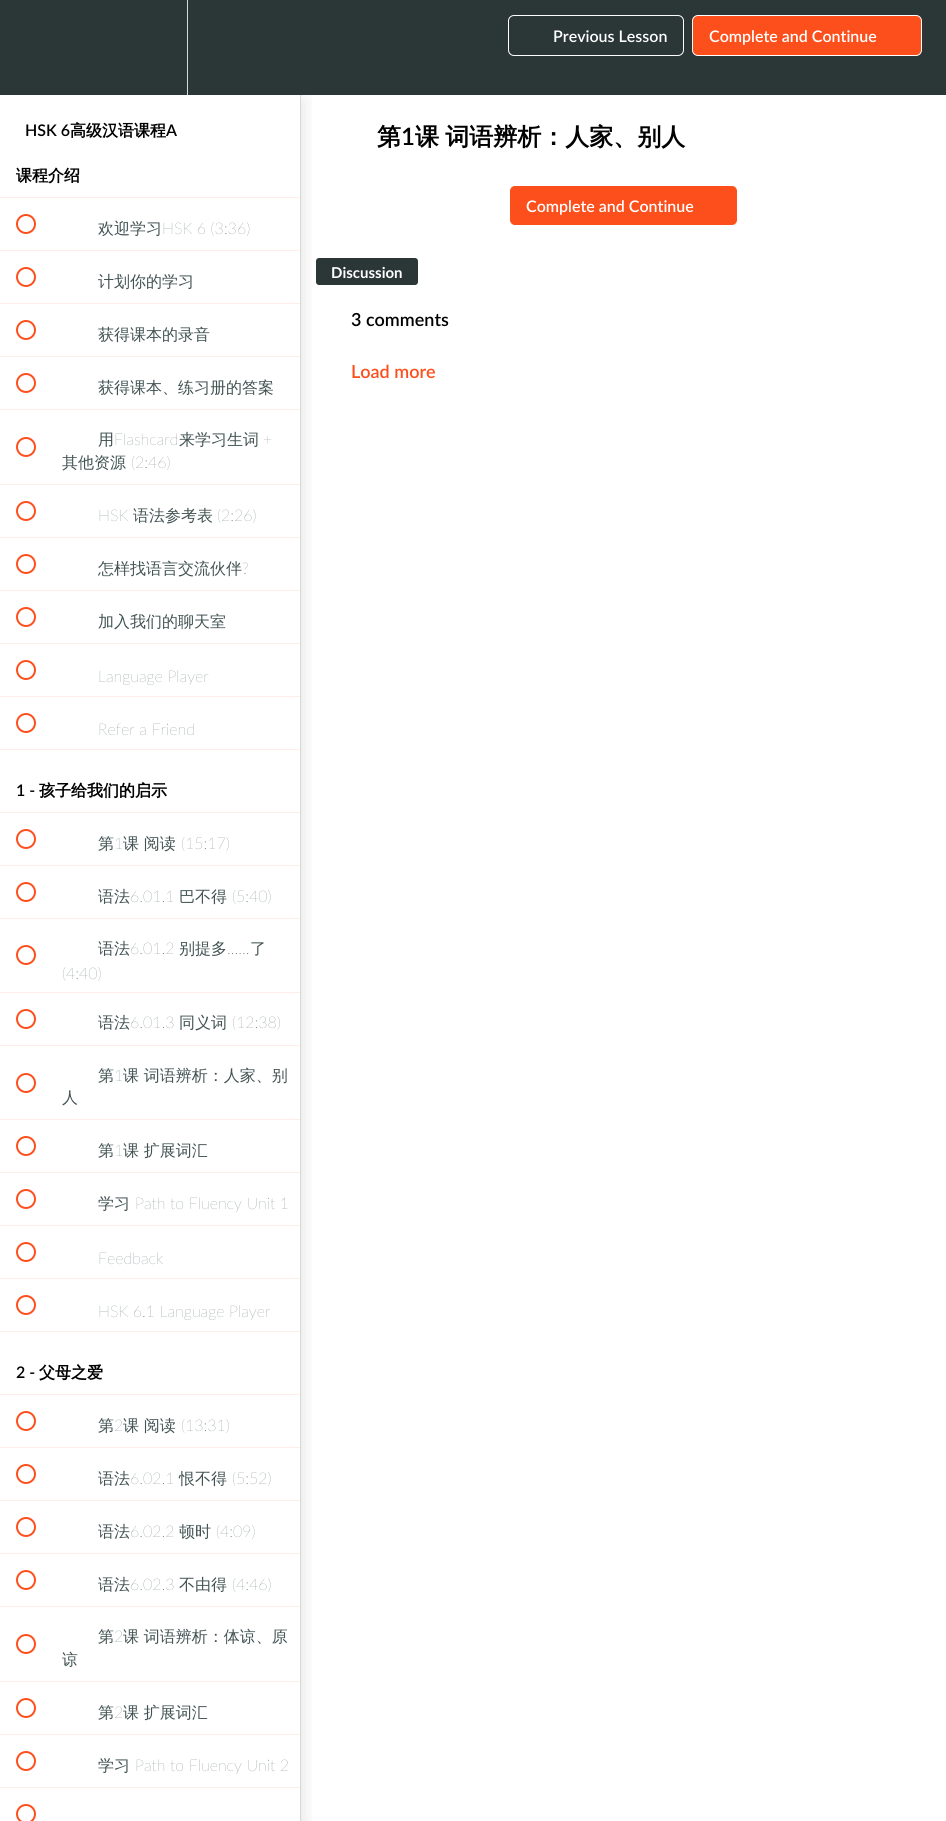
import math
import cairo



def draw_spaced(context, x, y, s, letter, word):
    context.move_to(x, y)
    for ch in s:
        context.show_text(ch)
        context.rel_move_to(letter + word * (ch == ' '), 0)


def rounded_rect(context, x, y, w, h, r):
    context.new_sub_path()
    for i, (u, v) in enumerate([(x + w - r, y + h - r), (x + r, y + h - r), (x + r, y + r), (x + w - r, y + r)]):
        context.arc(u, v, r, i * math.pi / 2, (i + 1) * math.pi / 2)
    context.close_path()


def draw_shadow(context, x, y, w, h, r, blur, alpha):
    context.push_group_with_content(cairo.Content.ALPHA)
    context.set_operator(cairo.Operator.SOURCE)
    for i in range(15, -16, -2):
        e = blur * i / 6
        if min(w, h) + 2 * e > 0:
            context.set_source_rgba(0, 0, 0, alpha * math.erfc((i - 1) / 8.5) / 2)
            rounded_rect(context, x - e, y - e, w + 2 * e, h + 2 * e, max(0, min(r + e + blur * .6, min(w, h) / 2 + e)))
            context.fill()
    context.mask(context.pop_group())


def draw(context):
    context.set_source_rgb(1, 1, 1)
    context.paint()
    context.set_source_rgb(43 / 255, 54 / 255, 54 / 255)
    rounded_rect(context, 316, 258, 102, 27, 3)
    context.fill()
    context.save()
    context.rectangle(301, 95, 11, 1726)
    context.clip()
    context.set_source_rgb(32 / 255, 39 / 255, 45 / 255)
    draw_shadow(context, 0, 101, 301, 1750, 0, 10, 0.15)
    context.restore()
    context.rectangle(0, 0, 946, 95)
    context.fill()
    context.set_source_rgb(215 / 255, 218 / 255, 219 / 255)
    context.rectangle(187, 0, 1, 95)
    context.fill()
    rounded_rect(context, 508.5, 15.5, 175, 40, 5.5)
    context.set_source_rgb(1, 1, 1)
    context.set_line_width(1)
    context.stroke()
    context.set_source_rgb(253 / 255, 79 / 255, 28 / 255)
    rounded_rect(context, 692.5, 15.5, 229, 40, 5.5)
    context.fill_preserve()
    context.set_source_rgb(1, 1, 1)
    context.stroke()
    context.set_source_rgb(215 / 255, 218 / 255, 219 / 255)
    context.rectangle(300, 95, 1, 1726)
    context.fill()
    context.set_source_rgb(1, 237 / 255, 232 / 255)
    context.rectangle(0, 197, 300, 1)
    context.fill()
    context.rectangle(0, 250, 300, 1)
    context.fill()
    context.arc(26, 224, 9, 0, 2 * math.pi)
    context.set_source_rgb(253 / 255, 79 / 255, 28 / 255)
    context.set_line_width(2)
    context.stroke()
    context.set_source_rgb(1, 237 / 255, 232 / 255)
    context.rectangle(0, 303, 300, 1)
    context.fill()
    context.arc(26, 277, 9, 0, 2 * math.pi)
    context.set_source_rgb(253 / 255, 79 / 255, 28 / 255)
    context.stroke()
    context.set_source_rgb(1, 237 / 255, 232 / 255)
    context.rectangle(0, 356, 300, 1)
    context.fill()
    context.arc(26, 330, 9, 0, 2 * math.pi)
    context.set_source_rgb(253 / 255, 79 / 255, 28 / 255)
    context.stroke()
    context.set_source_rgb(1, 237 / 255, 232 / 255)
    context.rectangle(0, 409, 300, 1)
    context.fill()
    context.arc(26, 383, 9, 0, 2 * math.pi)
    context.set_source_rgb(253 / 255, 79 / 255, 28 / 255)
    context.stroke()
    context.set_source_rgb(1, 237 / 255, 232 / 255)
    context.rectangle(0, 484, 300, 1)
    context.fill()
    context.arc(26, 447, 9, 0, 2 * math.pi)
    context.set_source_rgb(253 / 255, 79 / 255, 28 / 255)
    context.stroke()
    context.set_source_rgb(1, 237 / 255, 232 / 255)
    context.rectangle(0, 537, 300, 1)
    context.fill()
    context.arc(26, 511, 9, 0, 2 * math.pi)
    context.set_source_rgb(253 / 255, 79 / 255, 28 / 255)
    context.stroke()
    context.set_source_rgb(1, 237 / 255, 232 / 255)
    context.rectangle(0, 590, 300, 1)
    context.fill()
    context.arc(26, 564, 9, 0, 2 * math.pi)
    context.set_source_rgb(253 / 255, 79 / 255, 28 / 255)
    context.stroke()
    context.set_source_rgb(1, 237 / 255, 232 / 255)
    context.rectangle(0, 643, 300, 1)
    context.fill()
    context.arc(26, 617, 9, 0, 2 * math.pi)
    context.set_source_rgb(253 / 255, 79 / 255, 28 / 255)
    context.stroke()
    context.set_source_rgb(1, 237 / 255, 232 / 255)
    context.rectangle(0, 696, 300, 1)
    context.fill()
    context.arc(26, 670, 9, 0, 2 * math.pi)
    context.set_source_rgb(253 / 255, 79 / 255, 28 / 255)
    context.stroke()
    context.set_source_rgb(1, 237 / 255, 232 / 255)
    context.rectangle(0, 749, 300, 1)
    context.fill()
    context.arc(26, 723, 9, 0, 2 * math.pi)
    context.set_source_rgb(253 / 255, 79 / 255, 28 / 255)
    context.stroke()
    context.set_source_rgb(1, 237 / 255, 232 / 255)
    context.rectangle(0, 812, 300, 1)
    context.fill()
    context.rectangle(0, 865, 300, 1)
    context.fill()
    context.arc(26, 839, 9, 0, 2 * math.pi)
    context.set_source_rgb(253 / 255, 79 / 255, 28 / 255)
    context.stroke()
    context.set_source_rgb(1, 237 / 255, 232 / 255)
    context.rectangle(0, 918, 300, 1)
    context.fill()
    context.arc(26, 892, 9, 0, 2 * math.pi)
    context.set_source_rgb(253 / 255, 79 / 255, 28 / 255)
    context.stroke()
    context.set_source_rgb(1, 237 / 255, 232 / 255)
    context.rectangle(0, 992, 300, 1)
    context.fill()
    context.arc(26, 955, 9, 0, 2 * math.pi)
    context.set_source_rgb(253 / 255, 79 / 255, 28 / 255)
    context.stroke()
    context.set_source_rgb(1, 237 / 255, 232 / 255)
    context.rectangle(0, 1045, 300, 1)
    context.fill()
    context.arc(26, 1019, 9, 0, 2 * math.pi)
    context.set_source_rgb(253 / 255, 79 / 255, 28 / 255)
    context.stroke()
    context.set_source_rgb(1, 237 / 255, 232 / 255)
    context.rectangle(0, 1119, 300, 1)
    context.fill()
    context.arc(26, 1083, 9, 0, 2 * math.pi)
    context.set_source_rgb(253 / 255, 79 / 255, 28 / 255)
    context.stroke()
    context.set_source_rgb(1, 237 / 255, 232 / 255)
    context.rectangle(0, 1172, 300, 1)
    context.fill()
    context.arc(26, 1146, 9, 0, 2 * math.pi)
    context.set_source_rgb(253 / 255, 79 / 255, 28 / 255)
    context.stroke()
    context.set_source_rgb(1, 237 / 255, 232 / 255)
    context.rectangle(0, 1225, 300, 1)
    context.fill()
    context.arc(26, 1199, 9, 0, 2 * math.pi)
    context.set_source_rgb(253 / 255, 79 / 255, 28 / 255)
    context.stroke()
    context.set_source_rgb(1, 237 / 255, 232 / 255)
    context.rectangle(0, 1278, 300, 1)
    context.fill()
    context.arc(26, 1252, 9, 0, 2 * math.pi)
    context.set_source_rgb(253 / 255, 79 / 255, 28 / 255)
    context.stroke()
    context.set_source_rgb(1, 237 / 255, 232 / 255)
    context.rectangle(0, 1331, 300, 1)
    context.fill()
    context.arc(26, 1305, 9, 0, 2 * math.pi)
    context.set_source_rgb(253 / 255, 79 / 255, 28 / 255)
    context.stroke()
    context.set_source_rgb(1, 237 / 255, 232 / 255)
    context.rectangle(0, 1394, 300, 1)
    context.fill()
    context.rectangle(0, 1447, 300, 1)
    context.fill()
    context.arc(26, 1421, 9, 0, 2 * math.pi)
    context.set_source_rgb(253 / 255, 79 / 255, 28 / 255)
    context.stroke()
    context.set_source_rgb(1, 237 / 255, 232 / 255)
    context.rectangle(0, 1500, 300, 1)
    context.fill()
    context.arc(26, 1474, 9, 0, 2 * math.pi)
    context.set_source_rgb(253 / 255, 79 / 255, 28 / 255)
    context.stroke()
    context.set_source_rgb(1, 237 / 255, 232 / 255)
    context.rectangle(0, 1553, 300, 1)
    context.fill()
    context.arc(26, 1527, 9, 0, 2 * math.pi)
    context.set_source_rgb(253 / 255, 79 / 255, 28 / 255)
    context.stroke()
    context.set_source_rgb(1, 237 / 255, 232 / 255)
    context.rectangle(0, 1606, 300, 1)
    context.fill()
    context.arc(26, 1580, 9, 0, 2 * math.pi)
    context.set_source_rgb(253 / 255, 79 / 255, 28 / 255)
    context.stroke()
    context.set_source_rgb(1, 237 / 255, 232 / 255)
    context.rectangle(0, 1681, 300, 1)
    context.fill()
    context.arc(26, 1644, 9, 0, 2 * math.pi)
    context.set_source_rgb(253 / 255, 79 / 255, 28 / 255)
    context.stroke()
    context.set_source_rgb(1, 237 / 255, 232 / 255)
    context.rectangle(0, 1734, 300, 1)
    context.fill()
    context.arc(26, 1708, 9, 0, 2 * math.pi)
    context.set_source_rgb(253 / 255, 79 / 255, 28 / 255)
    context.stroke()
    context.set_source_rgb(1, 237 / 255, 232 / 255)
    context.rectangle(0, 1787, 300, 1)
    context.fill()
    context.arc(26, 1761, 9, 0, 2 * math.pi)
    context.set_source_rgb(253 / 255, 79 / 255, 28 / 255)
    context.stroke()
    context.arc(26, 1814, 9, 0, 2 * math.pi)
    context.stroke()
    rounded_rect(context, 509.5, 185.5, 228, 40, 5.5)
    context.fill_preserve()
    context.set_source_rgb(1, 1, 1)
    context.set_line_width(1)
    context.stroke()
    context.select_font_face("Lato SemiBold")
    context.set_font_size(16)
    context.move_to(553, 42)
    context.show_text("Previous Lesson")
    context.move_to(709, 42)
    context.show_text("Complete and Continue")
    context.set_source_rgb(0, 0, 0)
    context.move_to(25, 136)
    context.show_text("HSK 6")
    context.select_font_face("WenQuanYi Zen Hei", cairo.FontSlant.NORMAL, cairo.FontWeight.BOLD)
    context.move_to(70, 136)
    context.show_text("高级汉语课程")
    context.select_font_face("Lato SemiBold")
    context.move_to(166, 136)
    context.show_text("A")
    context.select_font_face("WenQuanYi Zen Hei", cairo.FontSlant.NORMAL, cairo.FontWeight.BOLD)
    context.move_to(16, 181)
    context.show_text("课程介绍")
    context.select_font_face("WenQuanYi Zen Hei Medium")
    context.set_source_rgb(66 / 255, 82 / 255, 82 / 255)
    context.move_to(98, 234)
    context.show_text("欢迎学习")
    context.select_font_face("Lato ExtraLight")
    context.move_to(162, 234)
    context.show_text("HSK 6 (3:36)")
    context.select_font_face("WenQuanYi Zen Hei Medium")
    context.move_to(98, 287)
    context.show_text("计划你的学习")
    context.move_to(98, 340)
    context.show_text("获得课本的录音")
    context.move_to(98, 393)
    context.show_text("获得课本、练习册的答案")
    context.move_to(98, 445)
    context.show_text("用")
    context.select_font_face("Lato ExtraLight")
    context.move_to(114, 445)
    context.show_text("Flashcard")
    context.select_font_face("WenQuanYi Zen Hei Medium")
    context.move_to(179, 445)
    context.show_text("来学习生词")
    context.select_font_face("Lato ExtraLight")
    context.move_to(263, 445)
    context.show_text("+")
    context.select_font_face("WenQuanYi Zen Hei Medium")
    context.move_to(62, 468)
    context.show_text("其他资源")
    context.select_font_face("Lato ExtraLight")
    context.move_to(131, 468)
    context.show_text("(2:46)")
    context.move_to(98, 521)
    context.show_text("HSK")
    context.select_font_face("WenQuanYi Zen Hei Medium")
    context.move_to(133, 521)
    context.show_text("语法参考表")
    context.select_font_face("Lato ExtraLight")
    context.move_to(217, 521)
    context.show_text("(2:26)")
    context.select_font_face("WenQuanYi Zen Hei Medium")
    context.move_to(98, 574)
    context.show_text("怎样找语言交流伙伴")
    context.select_font_face("Lato ExtraLight")
    context.move_to(242, 574)
    context.show_text("?")
    context.select_font_face("WenQuanYi Zen Hei Medium")
    context.move_to(98, 627)
    context.show_text("加入我们的聊天室")
    context.select_font_face("Lato ExtraLight")
    context.move_to(98, 682)
    context.show_text("Language Player")
    context.move_to(98, 735)
    context.show_text("Refer a Friend")
    context.select_font_face("Lato SemiBold")
    context.set_source_rgb(0, 0, 0)
    context.move_to(16, 796)
    context.show_text("1 -")
    context.select_font_face("WenQuanYi Zen Hei", cairo.FontSlant.NORMAL, cairo.FontWeight.BOLD)
    context.move_to(39, 796)
    context.show_text("孩子给我们的启示")
    context.select_font_face("WenQuanYi Zen Hei Medium")
    context.set_source_rgb(66 / 255, 82 / 255, 82 / 255)
    context.move_to(98, 849)
    context.show_text("第")
    context.select_font_face("Lato ExtraLight")
    context.move_to(114, 849)
    context.show_text("1")
    context.select_font_face("WenQuanYi Zen Hei Medium")
    context.move_to(123, 849)
    context.show_text("课 阅读")
    context.select_font_face("Lato ExtraLight")
    context.move_to(181, 849)
    context.show_text("(15:17)")
    context.select_font_face("WenQuanYi Zen Hei Medium")
    context.move_to(98, 902)
    context.show_text("语法")
    context.select_font_face("Lato ExtraLight")
    context.move_to(130, 902)
    context.show_text("6.01.1")
    context.select_font_face("WenQuanYi Zen Hei Medium")
    context.move_to(179, 902)
    context.show_text("巴不得")
    context.select_font_face("Lato ExtraLight")
    context.move_to(232, 902)
    context.show_text("(5:40)")
    context.select_font_face("WenQuanYi Zen Hei Medium")
    context.move_to(98, 954)
    context.show_text("语法")
    context.select_font_face("Lato ExtraLight")
    context.move_to(130, 954)
    context.show_text("6.01.2")
    context.select_font_face("WenQuanYi Zen Hei Medium")
    context.move_to(179, 954)
    context.show_text("别提多")
    context.select_font_face("Lato ExtraLight")
    context.move_to(227, 954)
    context.show_text("……")
    context.select_font_face("WenQuanYi Zen Hei Medium")
    context.move_to(250, 954)
    context.show_text("了")
    context.select_font_face("Lato ExtraLight")
    context.move_to(62, 979)
    context.show_text("(4:40)")
    context.select_font_face("WenQuanYi Zen Hei Medium")
    context.move_to(98, 1028)
    context.show_text("语法")
    context.select_font_face("Lato ExtraLight")
    context.move_to(130, 1028)
    context.show_text("6.01.3")
    context.select_font_face("WenQuanYi Zen Hei Medium")
    context.move_to(179, 1028)
    context.show_text("同义词")
    context.select_font_face("Lato ExtraLight")
    context.move_to(232, 1028)
    context.show_text("(12:38)")
    context.select_font_face("WenQuanYi Zen Hei Medium")
    context.move_to(98, 1081)
    context.show_text("第")
    context.select_font_face("Lato ExtraLight")
    context.move_to(114, 1081)
    context.show_text("1")
    context.select_font_face("WenQuanYi Zen Hei Medium")
    context.move_to(123, 1081)
    context.show_text("课 词语辨析：人家、别")
    context.move_to(62, 1103)
    context.show_text("人")
    context.move_to(98, 1156)
    context.show_text("第")
    context.select_font_face("Lato ExtraLight")
    context.move_to(114, 1156)
    context.show_text("1")
    context.select_font_face("WenQuanYi Zen Hei Medium")
    context.move_to(123, 1156)
    context.show_text("课 扩展词汇")
    context.move_to(98, 1209)
    context.show_text("学习")
    context.select_font_face("Lato ExtraLight")
    context.move_to(135, 1209)
    context.show_text("Path to Fluency Unit 1")
    context.move_to(98, 1264)
    context.show_text("Feedback")
    context.move_to(98, 1317)
    context.show_text("HSK 6.1 Language Player")
    context.select_font_face("Lato SemiBold")
    context.set_source_rgb(0, 0, 0)
    context.move_to(16, 1378)
    context.show_text("2 -")
    context.select_font_face("WenQuanYi Zen Hei", cairo.FontSlant.NORMAL, cairo.FontWeight.BOLD)
    context.move_to(39, 1378)
    context.show_text("父母之爱")
    context.select_font_face("WenQuanYi Zen Hei Medium")
    context.set_source_rgb(66 / 255, 82 / 255, 82 / 255)
    context.move_to(98, 1431)
    context.show_text("第")
    context.select_font_face("Lato ExtraLight")
    context.move_to(114, 1431)
    context.show_text("2")
    context.select_font_face("WenQuanYi Zen Hei Medium")
    context.move_to(123, 1431)
    context.show_text("课 阅读")
    context.select_font_face("Lato ExtraLight")
    context.move_to(181, 1431)
    context.show_text("(13:31)")
    context.select_font_face("WenQuanYi Zen Hei Medium")
    context.move_to(98, 1484)
    context.show_text("语法")
    context.select_font_face("Lato ExtraLight")
    context.move_to(130, 1484)
    context.show_text("6.02.1")
    context.select_font_face("WenQuanYi Zen Hei Medium")
    context.move_to(179, 1484)
    context.show_text("恨不得")
    context.select_font_face("Lato ExtraLight")
    context.move_to(232, 1484)
    context.show_text("(5:52)")
    context.select_font_face("WenQuanYi Zen Hei Medium")
    context.move_to(98, 1537)
    context.show_text("语法")
    context.select_font_face("Lato ExtraLight")
    context.move_to(130, 1537)
    context.show_text("6.02.2")
    context.select_font_face("WenQuanYi Zen Hei Medium")
    context.move_to(179, 1537)
    context.show_text("顿时")
    context.select_font_face("Lato ExtraLight")
    context.move_to(216, 1537)
    context.show_text("(4:09)")
    context.select_font_face("WenQuanYi Zen Hei Medium")
    context.move_to(98, 1590)
    context.show_text("语法")
    context.select_font_face("Lato ExtraLight")
    context.move_to(130, 1590)
    context.show_text("6.02.3")
    context.select_font_face("WenQuanYi Zen Hei Medium")
    context.move_to(179, 1590)
    context.show_text("不由得")
    context.select_font_face("Lato ExtraLight")
    context.move_to(232, 1590)
    context.show_text("(4:46)")
    context.select_font_face("WenQuanYi Zen Hei Medium")
    context.move_to(98, 1642)
    context.show_text("第")
    context.select_font_face("Lato ExtraLight")
    context.move_to(114, 1642)
    context.show_text("2")
    context.select_font_face("WenQuanYi Zen Hei Medium")
    context.move_to(123, 1642)
    context.show_text("课 词语辨析：体谅、原")
    context.move_to(62, 1665)
    context.show_text("谅")
    context.move_to(98, 1718)
    context.show_text("第")
    context.select_font_face("Lato ExtraLight")
    context.move_to(114, 1718)
    context.show_text("2")
    context.select_font_face("WenQuanYi Zen Hei Medium")
    context.move_to(123, 1718)
    context.show_text("课 扩展词汇")
    context.move_to(98, 1771)
    context.show_text("学习")
    context.select_font_face("Lato ExtraLight")
    context.move_to(135, 1771)
    context.show_text("Path to Fluency Unit 2")
    context.select_font_face("WenQuanYi Zen Hei", cairo.FontSlant.NORMAL, cairo.FontWeight.BOLD)
    context.set_font_size(24)
    context.set_source_rgb(0, 0, 0)
    context.move_to(377, 145)
    context.show_text("第")
    context.select_font_face("Lato SemiBold")
    context.move_to(401, 145)
    context.show_text("1")
    context.select_font_face("WenQuanYi Zen Hei", cairo.FontSlant.NORMAL, cairo.FontWeight.BOLD)
    draw_spaced(context, 415, 145, "课 词语辨析：人家、别人", 0, -1)
    context.select_font_face("Lato SemiBold")
    context.set_font_size(16)
    context.set_source_rgb(1, 1, 1)
    context.move_to(526, 212)
    context.show_text("Complete and Continue")
    context.select_font_face("Lato", cairo.FontSlant.NORMAL, cairo.FontWeight.BOLD)
    context.set_font_size(15)
    context.move_to(331, 278)
    context.show_text("Discussion")
    context.select_font_face("Lato SemiBold")
    context.set_font_size(18)
    context.set_source_rgb(0, 0, 0)
    context.move_to(351, 326)
    context.show_text("3 comments")
    context.set_source_rgb(253 / 255, 79 / 255, 28 / 255)
    context.move_to(351, 378)
    context.show_text("Load more")


surface = cairo.ImageSurface(cairo.Format.RGB24, 946, 1821)
context = cairo.Context(surface)
options = cairo.FontOptions()
options.set_hint_metrics(cairo.HintMetrics.OFF)
options.set_hint_style(cairo.HintStyle.NONE)
context.set_font_options(options)
context.set_miter_limit(4)
draw(context)
surface.write_to_png("out.png")
